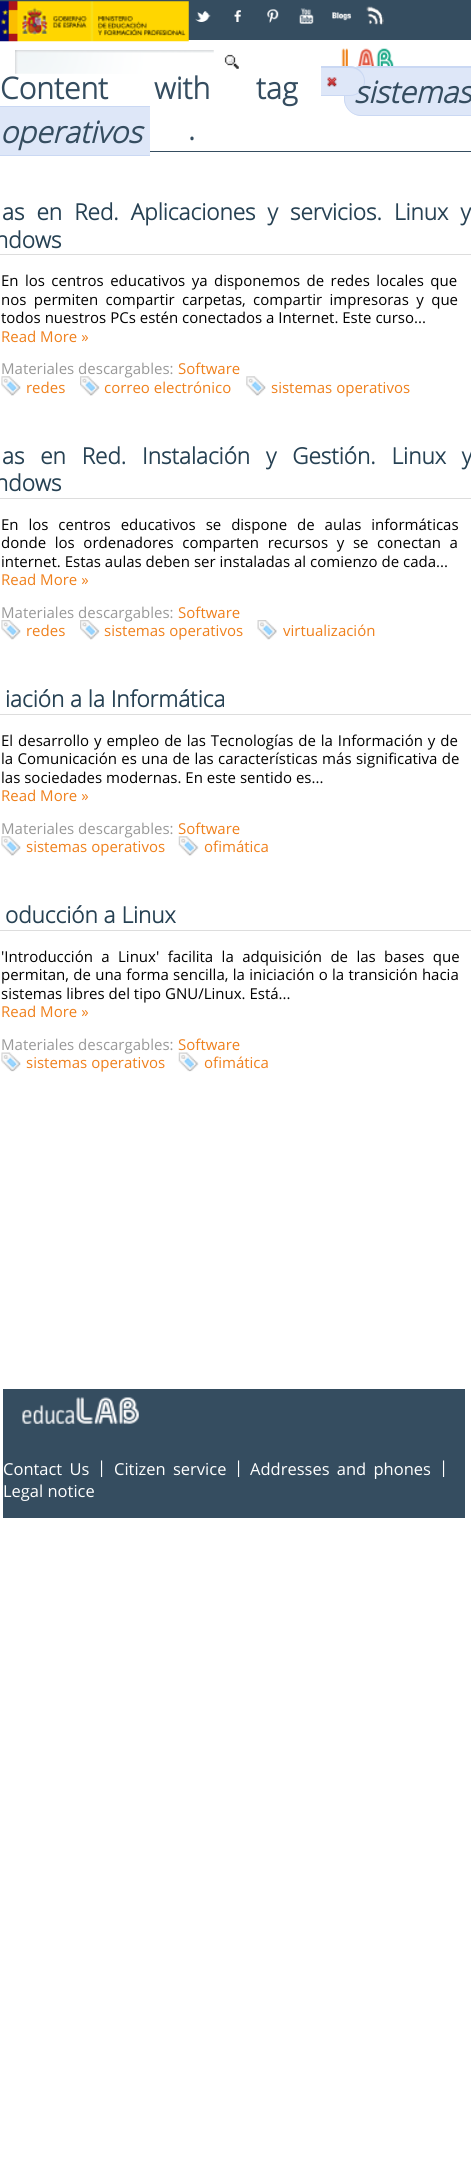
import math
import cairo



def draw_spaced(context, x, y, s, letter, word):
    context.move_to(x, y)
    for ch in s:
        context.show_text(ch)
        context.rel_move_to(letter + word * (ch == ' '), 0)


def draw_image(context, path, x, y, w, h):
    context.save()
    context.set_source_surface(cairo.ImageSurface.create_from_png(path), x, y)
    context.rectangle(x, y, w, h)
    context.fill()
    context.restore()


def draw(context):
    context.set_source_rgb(1, 1, 1)
    context.paint()
    context.set_source_rgb(53 / 255, 77 / 255, 96 / 255)
    context.rectangle(0, 0, 471, 40)
    context.fill()
    draw_image(context, "images/1.png", 0, 1, 189, 41)
    draw_image(context, "images/2.png", 195, 11, 16, 11)
    draw_image(context, "images/3.png", 234, 10, 7, 12)
    draw_image(context, "images/4.png", 267, 9, 12, 14)
    draw_image(context, "images/5.png", 299, 8, 15, 16)
    draw_image(context, "images/6.png", 332, 12, 20, 9)
    draw_image(context, "images/7.png", 366, 6, 18, 19)
    draw_image(context, "images/8.png", 15, 50, 199, 24)
    draw_image(context, "images/9.png", 224, 54, 15, 15)
    draw_image(context, "images/10.png", 341, 48, 53, 19)
    context.rectangle(150, 151, 321, 1)
    context.fill()
    context.set_source_rgb(222 / 255, 231 / 255, 248 / 255)
    context.new_path()
    context.move_to(362, 66)
    context.line_to(471, 66)
    context.line_to(471, 116)
    context.line_to(362, 116)
    context.curve_to(352, 116, 344, 108, 344, 98)
    context.line_to(344, 84)
    context.curve_to(344, 74, 352, 66, 362, 66)
    context.close_path()
    context.fill()
    context.set_source_rgb(202 / 255, 216 / 255, 243 / 255)
    context.set_fill_rule(cairo.FillRule.EVEN_ODD)
    context.new_path()
    context.move_to(361, 66)
    context.line_to(471, 66)
    context.line_to(471, 116)
    context.line_to(361, 116)
    context.curve_to(352, 116, 344, 108, 344, 99)
    context.line_to(344, 84)
    context.curve_to(344, 74, 352, 66, 361, 66)
    context.close_path()
    context.move_to(361, 68)
    context.line_to(471, 68)
    context.line_to(471, 115)
    context.line_to(361, 115)
    context.curve_to(352, 115, 345, 108, 345, 99)
    context.line_to(345, 84)
    context.curve_to(345, 75, 352, 68, 361, 68)
    context.close_path()
    context.fill()
    context.set_source_rgb(222 / 255, 231 / 255, 248 / 255)
    context.rectangle(0, 107, 150, 48)
    context.fill()
    context.set_source_rgb(202 / 255, 216 / 255, 243 / 255)
    context.rectangle(0, 155, 150, 1)
    context.fill()
    context.set_source_rgb(222 / 255, 231 / 255, 248 / 255)
    context.new_path()
    context.move_to(321, 66)
    context.line_to(350, 66)
    context.curve_to(358.5, 66, 365, 72.5, 365, 81)
    context.curve_to(365, 89.5, 358.5, 96, 350, 96)
    context.line_to(321, 96)
    context.close_path()
    context.fill()
    context.set_source_rgb(202 / 255, 216 / 255, 243 / 255)
    context.new_path()
    context.move_to(321, 66)
    context.line_to(350, 66)
    context.curve_to(358, 66, 365, 73, 365, 81)
    context.curve_to(365, 90, 358, 96, 350, 96)
    context.line_to(321, 96)
    context.close_path()
    context.move_to(321, 68)
    context.line_to(350, 68)
    context.curve_to(358, 68, 364, 74, 364, 81)
    context.curve_to(364, 89, 358, 95, 350, 95)
    context.line_to(321, 95)
    context.close_path()
    context.fill()
    draw_image(context, "images/11.png", 327, 77, 10, 10)
    context.set_source_rgb(221 / 255, 221 / 255, 221 / 255)
    context.rectangle(0, 254, 471, 1)
    context.fill()
    draw_image(context, "images/14.png", 246, 376, 20, 20)
    context.rectangle(0, 498, 471, 1)
    context.fill()
    draw_image(context, "images/17.png", 257, 620, 20, 20)
    context.rectangle(0, 714, 471, 1)
    context.fill()
    draw_image(context, "images/18.png", 178, 836, 21, 20)
    context.rectangle(0, 930, 471, 1)
    context.fill()
    draw_image(context, "images/20.png", 178, 1052, 21, 20)
    context.set_source_rgb(53 / 255, 77 / 255, 96 / 255)
    context.rectangle(3, 1389, 462, 129)
    context.fill()
    draw_image(context, "images/21.png", 22, 1397, 117, 27)
    context.select_font_face("Open Sans", cairo.FontSlant.NORMAL, cairo.FontWeight.BOLD)
    context.set_font_size(30)
    draw_spaced(context, 0, 99, "Content with tag", 0, 38)
    context.set_source_rgb(202 / 255, 216 / 255, 243 / 255)
    context.rectangle(0, 106, 150, 1)
    context.fill()
    context.select_font_face("Open Sans", cairo.FontSlant.ITALIC, cairo.FontWeight.BOLD)
    context.set_source_rgb(53 / 255, 77 / 255, 96 / 255)
    context.move_to(354, 103)
    context.show_text("sistemas")
    context.move_to(0, 143)
    context.show_text("operativos")
    context.select_font_face("Open Sans", cairo.FontSlant.NORMAL, cairo.FontWeight.BOLD)
    context.move_to(188, 140)
    context.show_text(".")
    context.set_font_size(22.5)
    context.set_source_rgb(38 / 255, 65 / 255, 83 / 255)
    draw_spaced(context, 2, 220, "as en Red. Aplicaciones y servicios. Linux y", 0, 6.25)
    context.move_to(-5, 248)
    context.show_text("ndows")
    context.select_font_face("Open Sans")
    context.set_font_size(15)
    context.set_source_rgb(0, 0, 0)
    draw_spaced(context, 1, 286, "En los centros educativos ya disponemos de redes locales que", 0, 2.5)
    draw_spaced(context, 1, 305, "nos permiten compartir carpetas, compartir impresoras y que", 0, 3.5)
    context.move_to(1, 323)
    context.show_text("todos nuestros PCs estén conectados a Internet. Este curso...")
    context.set_source_rgb(239 / 255, 128 / 255, 28 / 255)
    context.move_to(1, 342)
    context.show_text("Read More »")
    context.set_source_rgb(153 / 255, 153 / 255, 153 / 255)
    context.move_to(1, 374)
    context.show_text("Materiales descargables:")
    context.set_source_rgb(239 / 255, 128 / 255, 28 / 255)
    context.move_to(178, 374)
    context.show_text("Software")
    draw_image(context, "images/12.png", 1, 376, 20, 20)
    context.move_to(26, 393)
    context.show_text("redes")
    draw_image(context, "images/13.png", 80, 376, 20, 20)
    context.move_to(104, 393)
    context.show_text("correo electrónico")
    context.move_to(271, 393)
    context.show_text("sistemas operativos")
    context.select_font_face("Open Sans", cairo.FontSlant.NORMAL, cairo.FontWeight.BOLD)
    context.set_font_size(22.5)
    context.set_source_rgb(38 / 255, 65 / 255, 83 / 255)
    draw_spaced(context, 2, 464, "as en Red. Instalación y Gestión. Linux y", 0, 10)
    context.move_to(-5, 491)
    context.show_text("ndows")
    context.select_font_face("Open Sans")
    context.set_font_size(15)
    context.set_source_rgb(0, 0, 0)
    draw_spaced(context, 1, 530, "En los centros educativos se dispone de aulas informáticas", 0, 6)
    draw_spaced(context, 1, 548, "donde los ordenadores comparten recursos y se conectan a", 0, 4.75)
    context.move_to(1, 567)
    context.show_text("internet. Estas aulas deben ser instaladas al comienzo de cada...")
    context.set_source_rgb(239 / 255, 128 / 255, 28 / 255)
    context.move_to(1, 585)
    context.show_text("Read More »")
    context.set_source_rgb(153 / 255, 153 / 255, 153 / 255)
    context.move_to(1, 618)
    context.show_text("Materiales descargables:")
    context.set_source_rgb(239 / 255, 128 / 255, 28 / 255)
    context.move_to(178, 618)
    context.show_text("Software")
    draw_image(context, "images/15.png", 1, 620, 20, 20)
    context.move_to(26, 636)
    context.show_text("redes")
    draw_image(context, "images/16.png", 80, 620, 20, 20)
    context.move_to(104, 636)
    context.show_text("sistemas operativos")
    context.move_to(283, 636)
    context.show_text("virtualización")
    context.select_font_face("Open Sans", cairo.FontSlant.NORMAL, cairo.FontWeight.BOLD)
    context.set_font_size(22.5)
    context.set_source_rgb(38 / 255, 65 / 255, 83 / 255)
    context.move_to(5, 707)
    context.show_text("iación a la Informática")
    context.select_font_face("Open Sans")
    context.set_font_size(15)
    context.set_source_rgb(0, 0, 0)
    draw_spaced(context, 1, 746, "El desarrollo y empleo de las Tecnologías de la Información y de", 0, 1)
    draw_spaced(context, 1, 764, "la Comunicación es una de las características más significativa de", 0, 0.5)
    context.move_to(1, 783)
    context.show_text("las sociedades modernas. En este sentido es...")
    context.set_source_rgb(239 / 255, 128 / 255, 28 / 255)
    context.move_to(1, 801)
    context.show_text("Read More »")
    context.set_source_rgb(153 / 255, 153 / 255, 153 / 255)
    context.move_to(1, 834)
    context.show_text("Materiales descargables:")
    context.set_source_rgb(239 / 255, 128 / 255, 28 / 255)
    context.move_to(178, 834)
    context.show_text("Software")
    draw_image(context, "images/12.png", 1, 836, 20, 20)
    context.move_to(26, 852)
    context.show_text("sistemas operativos")
    context.move_to(204, 852)
    context.show_text("ofimática")
    context.select_font_face("Open Sans", cairo.FontSlant.NORMAL, cairo.FontWeight.BOLD)
    context.set_font_size(22.5)
    context.set_source_rgb(38 / 255, 65 / 255, 83 / 255)
    context.move_to(5, 923)
    context.show_text("oducción a Linux")
    context.select_font_face("Open Sans")
    context.set_font_size(15)
    context.set_source_rgb(0, 0, 0)
    draw_spaced(context, 1, 962, "'Introducción a Linux' facilita la adquisición de las bases que", 0, 4.5)
    draw_spaced(context, 1, 980, "permitan, de una forma sencilla, la iniciación o la transición hacia", 0, 0.4)
    context.move_to(1, 999)
    context.show_text("sistemas libres del tipo GNU/Linux. Está...")
    context.set_source_rgb(239 / 255, 128 / 255, 28 / 255)
    context.move_to(1, 1017)
    context.show_text("Read More »")
    context.set_source_rgb(153 / 255, 153 / 255, 153 / 255)
    context.move_to(1, 1050)
    context.show_text("Materiales descargables:")
    context.set_source_rgb(239 / 255, 128 / 255, 28 / 255)
    context.move_to(178, 1050)
    context.show_text("Software")
    draw_image(context, "images/19.png", 1, 1052, 20, 20)
    context.move_to(26, 1068)
    context.show_text("sistemas operativos")
    context.move_to(204, 1068)
    context.show_text("ofimática")
    context.set_font_size(16.5)
    context.set_source_rgb(1, 1, 1)
    draw_spaced(context, 3, 1475, "Contact Us", 0, 3)
    context.move_to(97, 1473)
    context.show_text("|")
    draw_spaced(context, 114, 1475, "Citizen service", 0, 3)
    context.move_to(234, 1473)
    context.show_text("|")
    draw_spaced(context, 250, 1475, "Addresses and phones", 0, 3)
    context.move_to(439, 1473)
    context.show_text("|")
    context.move_to(3, 1497)
    context.show_text("Legal notice")


surface = cairo.ImageSurface(cairo.Format.RGB24, 471, 2183)
context = cairo.Context(surface)
options = cairo.FontOptions()
options.set_hint_metrics(cairo.HintMetrics.OFF)
options.set_hint_style(cairo.HintStyle.NONE)
context.set_font_options(options)
context.set_miter_limit(4)
draw(context)
surface.write_to_png("out.png")
